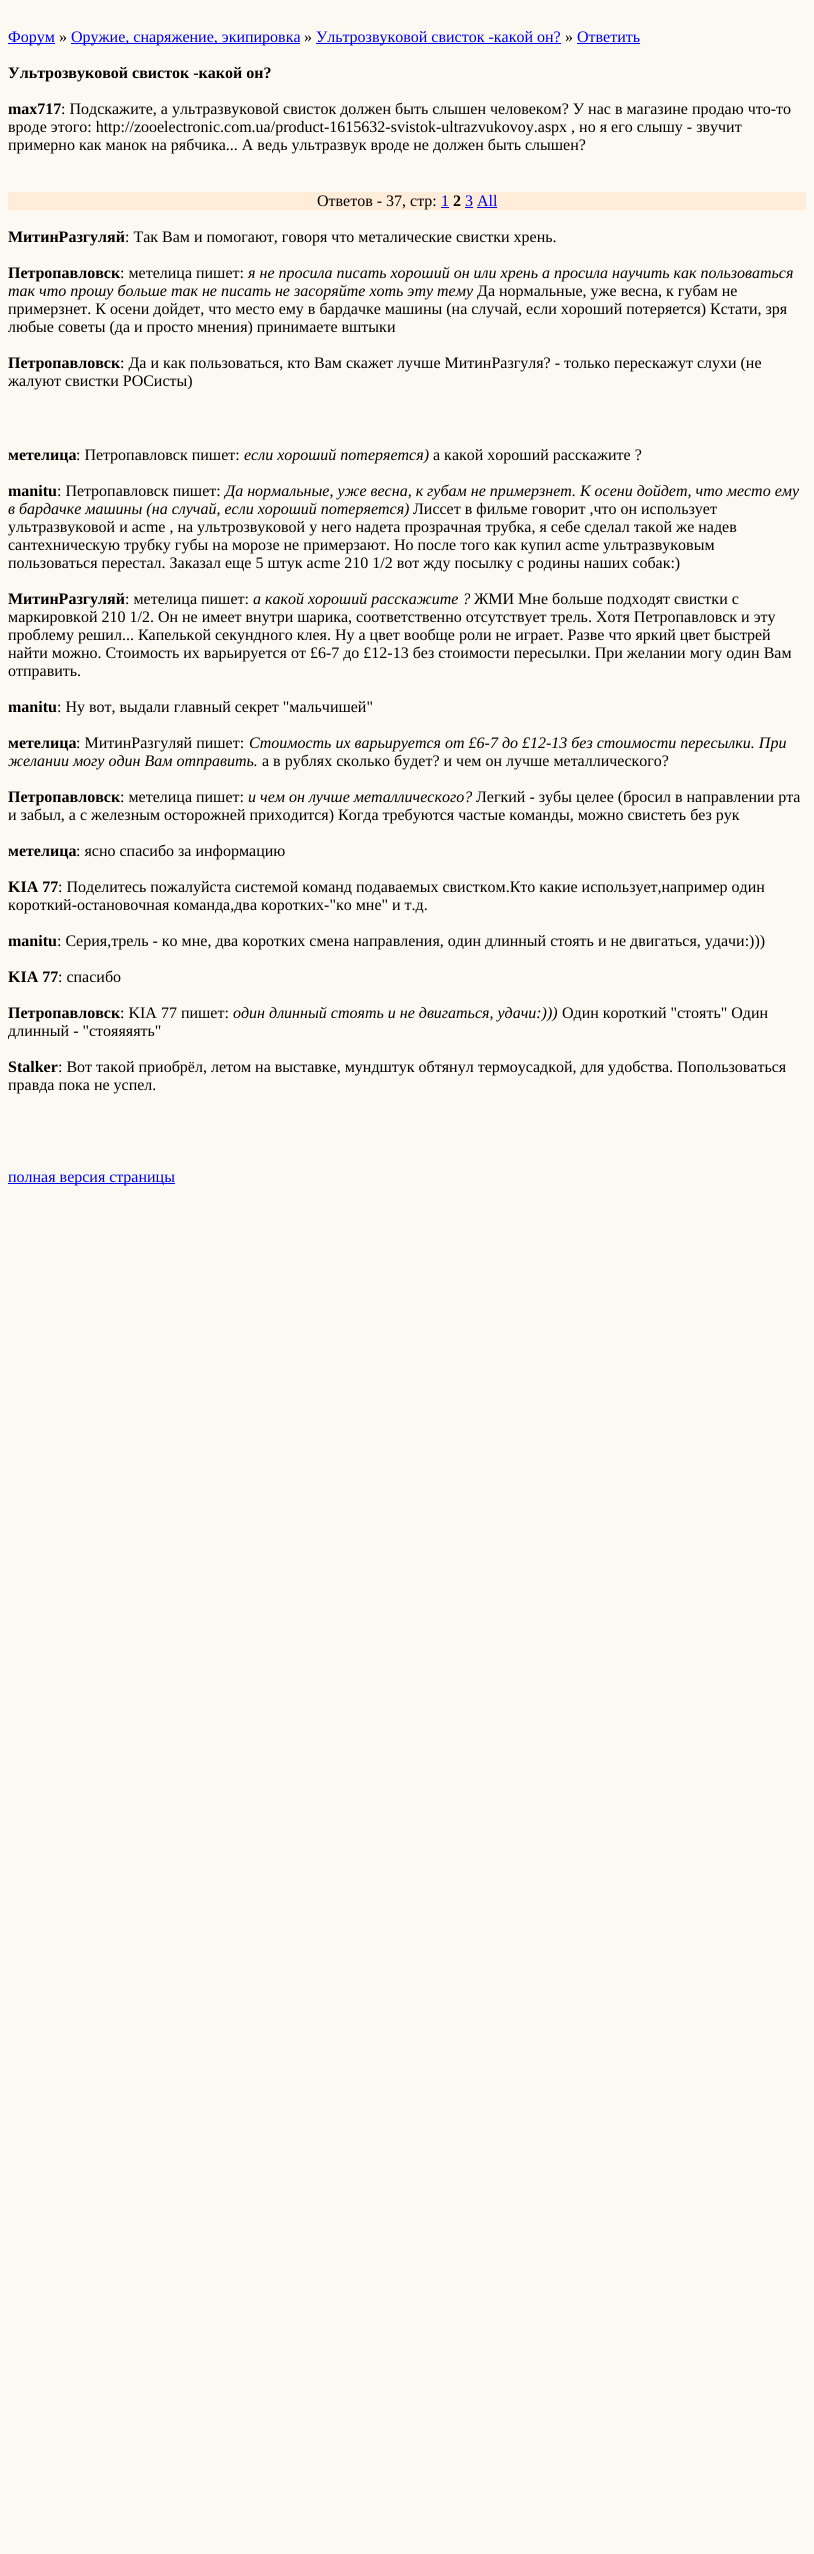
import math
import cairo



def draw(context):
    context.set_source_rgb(252 / 255, 249 / 255, 243 / 255)
    context.paint()
    context.set_source_rgb(0, 0, 238 / 255)
    context.rectangle(8, 43, 47, 1)
    context.fill()
    context.rectangle(71, 43, 229, 1)
    context.fill()
    context.rectangle(316, 43, 245, 1)
    context.fill()
    context.rectangle(577, 43, 63, 1)
    context.fill()
    context.set_source_rgb(1, 236 / 255, 217 / 255)
    context.rectangle(8, 192, 798, 18)
    context.fill()
    context.set_source_rgb(0, 0, 238 / 255)
    context.rectangle(441, 207, 8, 1)
    context.fill()
    context.rectangle(465, 207, 8, 1)
    context.fill()
    context.rectangle(477, 207, 20, 1)
    context.fill()
    context.rectangle(8, 1183, 167, 1)
    context.fill()
    context.select_font_face("Liberation Serif")
    context.set_font_size(16)
    context.move_to(8, 42)
    context.show_text("Форум")
    context.set_source_rgb(0, 0, 0)
    context.move_to(59, 42)
    context.show_text("»")
    context.set_source_rgb(0, 0, 238 / 255)
    context.move_to(71, 42)
    context.show_text("Оружие, снаряжение, экипировка")
    context.set_source_rgb(0, 0, 0)
    context.move_to(304, 42)
    context.show_text("»")
    context.set_source_rgb(0, 0, 238 / 255)
    context.move_to(316, 42)
    context.show_text("Ультрозвуковой свисток -какой он?")
    context.set_source_rgb(0, 0, 0)
    context.move_to(565, 42)
    context.show_text("»")
    context.set_source_rgb(0, 0, 238 / 255)
    context.move_to(577, 42)
    context.show_text("Ответить")
    context.select_font_face("Liberation Serif", cairo.FontSlant.NORMAL, cairo.FontWeight.BOLD)
    context.set_source_rgb(0, 0, 0)
    context.move_to(8, 78)
    context.show_text("Ультрозвуковой свисток -какой он?")
    context.move_to(8, 114)
    context.show_text("max717")
    context.select_font_face("Liberation Serif")
    context.move_to(61, 114)
    context.show_text(": Подскажите, а ультразвуковой свисток должен быть слышен человеком? У нас в магазине продаю что-то")
    context.move_to(8, 132)
    context.show_text("вроде этого: http://zooelectronic.com.ua/product-1615632-svistok-ultrazvukovoy.aspx , но я его слышу - звучит")
    context.move_to(8, 150)
    context.show_text("примерно как манок на рябчика... А ведь ультразвук вроде не должен быть слышен?")
    context.move_to(317, 206)
    context.show_text("Ответов - 37, стр:")
    context.set_source_rgb(0, 0, 238 / 255)
    context.move_to(441, 206)
    context.show_text("1")
    context.select_font_face("Liberation Serif", cairo.FontSlant.NORMAL, cairo.FontWeight.BOLD)
    context.set_source_rgb(0, 0, 0)
    context.move_to(453, 206)
    context.show_text("2")
    context.select_font_face("Liberation Serif")
    context.set_source_rgb(0, 0, 238 / 255)
    context.move_to(465, 206)
    context.show_text("3 All")
    context.select_font_face("Liberation Serif", cairo.FontSlant.NORMAL, cairo.FontWeight.BOLD)
    context.set_source_rgb(0, 0, 0)
    context.move_to(8, 242)
    context.show_text("МитинРазгуляй")
    context.select_font_face("Liberation Serif")
    context.move_to(125, 242)
    context.show_text(": Так Вам и помогают, говоря что металические свистки хрень.")
    context.select_font_face("Liberation Serif", cairo.FontSlant.NORMAL, cairo.FontWeight.BOLD)
    context.move_to(8, 278)
    context.show_text("Петропавловск")
    context.select_font_face("Liberation Serif")
    context.move_to(120, 278)
    context.show_text(": метелица пишет:")
    context.select_font_face("Liberation Serif", cairo.FontSlant.ITALIC)
    context.move_to(248, 278)
    context.show_text("я не просила писать хороший он или хрень а просила научить как пользоваться")
    context.move_to(8, 296)
    context.show_text("так что прошу больше так не писать не засоряйте хоть эту тему")
    context.select_font_face("Liberation Serif")
    context.move_to(477, 296)
    context.show_text("Да нормальные, уже весна, к губам не")
    context.move_to(8, 314)
    context.show_text("примерзнет. К осени дойдет, что место ему в бардачке машины (на случай, если хороший потеряется) Кстати, зря")
    context.move_to(8, 332)
    context.show_text("любые советы (да и просто мнения) принимаете вштыки")
    context.select_font_face("Liberation Serif", cairo.FontSlant.NORMAL, cairo.FontWeight.BOLD)
    context.move_to(8, 368)
    context.show_text("Петропавловск")
    context.select_font_face("Liberation Serif")
    context.move_to(120, 368)
    context.show_text(": Да и как пользоваться, кто Вам скажет лучше МитинРазгуля? - только перескажут слухи (не")
    context.move_to(8, 386)
    context.show_text("жалуют свистки РОСисты)")
    context.select_font_face("Liberation Serif", cairo.FontSlant.NORMAL, cairo.FontWeight.BOLD)
    context.move_to(8, 460)
    context.show_text("метелица")
    context.select_font_face("Liberation Serif")
    context.move_to(76, 460)
    context.show_text(": Петропавловск пишет:")
    context.select_font_face("Liberation Serif", cairo.FontSlant.ITALIC)
    context.move_to(244, 460)
    context.show_text("если хороший потеряется)")
    context.select_font_face("Liberation Serif")
    context.move_to(433, 460)
    context.show_text("а какой хороший расскажите ?")
    context.select_font_face("Liberation Serif", cairo.FontSlant.NORMAL, cairo.FontWeight.BOLD)
    context.move_to(8, 496)
    context.show_text("manitu")
    context.select_font_face("Liberation Serif")
    context.move_to(57, 496)
    context.show_text(": Петропавловск пишет:")
    context.select_font_face("Liberation Serif", cairo.FontSlant.ITALIC)
    context.move_to(225, 496)
    context.show_text("Да нормальные, уже весна, к губам не примерзнет. К осени дойдет, что место ему")
    context.move_to(8, 514)
    context.show_text("в бардачке машины (на случай, если хороший потеряется)")
    context.select_font_face("Liberation Serif")
    context.move_to(413, 514)
    context.show_text("Лиссет в фильме говорит ,что он использует")
    context.move_to(8, 532)
    context.show_text("ультразвуковой и acme , на ультрозвуковой у него надета прозрачная трубка, я себе сделал такой же надев")
    context.move_to(8, 550)
    context.show_text("сантехническую трубку губы на морозе не примерзают. Но после того как купил acme ультразвуковым")
    context.move_to(8, 568)
    context.show_text("пользоваться перестал. Заказал еще 5 штук acme 210 1/2 вот жду посылку с родины наших собак:)")
    context.select_font_face("Liberation Serif", cairo.FontSlant.NORMAL, cairo.FontWeight.BOLD)
    context.move_to(8, 604)
    context.show_text("МитинРазгуляй")
    context.select_font_face("Liberation Serif")
    context.move_to(125, 604)
    context.show_text(": метелица пишет:")
    context.select_font_face("Liberation Serif", cairo.FontSlant.ITALIC)
    context.move_to(253, 604)
    context.show_text("а какой хороший расскажите ?")
    context.select_font_face("Liberation Serif")
    context.move_to(474, 604)
    context.show_text("ЖМИ Мне больше подходят свистки с")
    context.move_to(8, 622)
    context.show_text("маркировкой 210 1/2. Он не имеет внутри шарика, соответственно отсутствует трель. Хотя Петропавловск и эту")
    context.move_to(8, 640)
    context.show_text("проблему решил... Капелькой секундного клея. Ну а цвет вообще роли не играет. Разве что яркий цвет быстрей")
    context.move_to(8, 658)
    context.show_text("найти можно. Стоимость их варьируется от £6-7 до £12-13 без стоимости пересылки. При желании могу один Вам")
    context.move_to(8, 676)
    context.show_text("отправить.")
    context.select_font_face("Liberation Serif", cairo.FontSlant.NORMAL, cairo.FontWeight.BOLD)
    context.move_to(8, 712)
    context.show_text("manitu")
    context.select_font_face("Liberation Serif")
    context.move_to(57, 712)
    context.show_text(": Ну вот, выдали главный секрет \"мальчишей\"")
    context.select_font_face("Liberation Serif", cairo.FontSlant.NORMAL, cairo.FontWeight.BOLD)
    context.move_to(8, 748)
    context.show_text("метелица")
    context.select_font_face("Liberation Serif")
    context.move_to(76, 748)
    context.show_text(": МитинРазгуляй пишет:")
    context.select_font_face("Liberation Serif", cairo.FontSlant.ITALIC)
    context.move_to(249, 748)
    context.show_text("Стоимость их варьируется от £6-7 до £12-13 без стоимости пересылки. При")
    context.move_to(8, 766)
    context.show_text("желании могу один Вам отправить.")
    context.select_font_face("Liberation Serif")
    context.move_to(262, 766)
    context.show_text("а в рублях сколько будет? и чем он лучше металлического?")
    context.select_font_face("Liberation Serif", cairo.FontSlant.NORMAL, cairo.FontWeight.BOLD)
    context.move_to(8, 802)
    context.show_text("Петропавловск")
    context.select_font_face("Liberation Serif")
    context.move_to(120, 802)
    context.show_text(": метелица пишет:")
    context.select_font_face("Liberation Serif", cairo.FontSlant.ITALIC)
    context.move_to(248, 802)
    context.show_text("и чем он лучше металлического?")
    context.select_font_face("Liberation Serif")
    context.move_to(476, 802)
    context.show_text("Легкий - зубы целее (бросил в направлении рта")
    context.move_to(8, 820)
    context.show_text("и забыл, а с железным осторожней приходится) Когда требуются частые команды, можно свистеть без рук")
    context.select_font_face("Liberation Serif", cairo.FontSlant.NORMAL, cairo.FontWeight.BOLD)
    context.move_to(8, 856)
    context.show_text("метелица")
    context.select_font_face("Liberation Serif")
    context.move_to(76, 856)
    context.show_text(": ясно спасибо за информацию")
    context.select_font_face("Liberation Serif", cairo.FontSlant.NORMAL, cairo.FontWeight.BOLD)
    context.move_to(8, 892)
    context.show_text("KIA 77")
    context.select_font_face("Liberation Serif")
    context.move_to(58, 892)
    context.show_text(": Поделитесь пожалуйста системой команд подаваемых свистком.Кто какие использует,например один")
    context.move_to(8, 910)
    context.show_text("короткий-остановочная команда,два коротких-\"ко мне\" и т.д.")
    context.select_font_face("Liberation Serif", cairo.FontSlant.NORMAL, cairo.FontWeight.BOLD)
    context.move_to(8, 946)
    context.show_text("manitu")
    context.select_font_face("Liberation Serif")
    context.move_to(57, 946)
    context.show_text(": Серия,трель - ко мне, два коротких смена направления, один длинный стоять и не двигаться, удачи:)))")
    context.select_font_face("Liberation Serif", cairo.FontSlant.NORMAL, cairo.FontWeight.BOLD)
    context.move_to(8, 982)
    context.show_text("KIA 77")
    context.select_font_face("Liberation Serif")
    context.move_to(58, 982)
    context.show_text(": спасибо")
    context.select_font_face("Liberation Serif", cairo.FontSlant.NORMAL, cairo.FontWeight.BOLD)
    context.move_to(8, 1018)
    context.show_text("Петропавловск")
    context.select_font_face("Liberation Serif")
    context.move_to(120, 1018)
    context.show_text(": KIA 77 пишет:")
    context.select_font_face("Liberation Serif", cairo.FontSlant.ITALIC)
    context.move_to(233, 1018)
    context.show_text("один длинный стоять и не двигаться, удачи:)))")
    context.select_font_face("Liberation Serif")
    context.move_to(562, 1018)
    context.show_text("Один короткий \"стоять\" Один")
    context.move_to(8, 1036)
    context.show_text("длинный - \"стояяяять\"")
    context.select_font_face("Liberation Serif", cairo.FontSlant.NORMAL, cairo.FontWeight.BOLD)
    context.move_to(8, 1072)
    context.show_text("Stalker")
    context.select_font_face("Liberation Serif")
    context.move_to(58, 1072)
    context.show_text(": Вот такой приобрёл, летом на выставке, мундштук обтянул термоусадкой, для удобства. Попользоваться")
    context.move_to(8, 1090)
    context.show_text("правда пока не успел.")
    context.set_source_rgb(0, 0, 238 / 255)
    context.move_to(8, 1182)
    context.show_text("полная версия страницы")


surface = cairo.ImageSurface(cairo.Format.RGB24, 814, 2554)
context = cairo.Context(surface)
options = cairo.FontOptions()
options.set_hint_metrics(cairo.HintMetrics.OFF)
options.set_hint_style(cairo.HintStyle.NONE)
context.set_font_options(options)
context.set_miter_limit(4)
draw(context)
surface.write_to_png("out.png")
